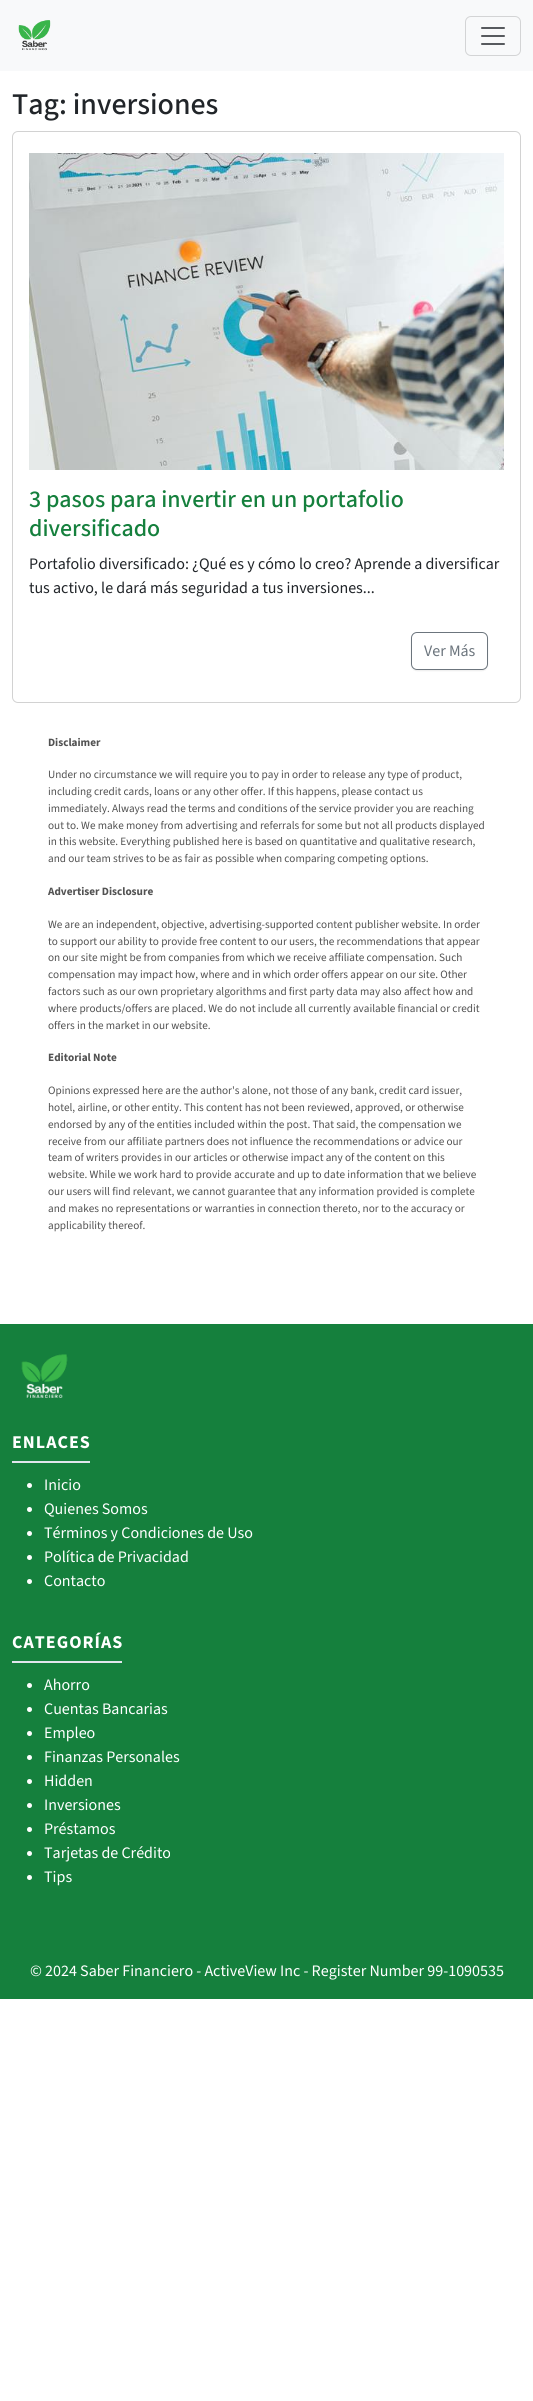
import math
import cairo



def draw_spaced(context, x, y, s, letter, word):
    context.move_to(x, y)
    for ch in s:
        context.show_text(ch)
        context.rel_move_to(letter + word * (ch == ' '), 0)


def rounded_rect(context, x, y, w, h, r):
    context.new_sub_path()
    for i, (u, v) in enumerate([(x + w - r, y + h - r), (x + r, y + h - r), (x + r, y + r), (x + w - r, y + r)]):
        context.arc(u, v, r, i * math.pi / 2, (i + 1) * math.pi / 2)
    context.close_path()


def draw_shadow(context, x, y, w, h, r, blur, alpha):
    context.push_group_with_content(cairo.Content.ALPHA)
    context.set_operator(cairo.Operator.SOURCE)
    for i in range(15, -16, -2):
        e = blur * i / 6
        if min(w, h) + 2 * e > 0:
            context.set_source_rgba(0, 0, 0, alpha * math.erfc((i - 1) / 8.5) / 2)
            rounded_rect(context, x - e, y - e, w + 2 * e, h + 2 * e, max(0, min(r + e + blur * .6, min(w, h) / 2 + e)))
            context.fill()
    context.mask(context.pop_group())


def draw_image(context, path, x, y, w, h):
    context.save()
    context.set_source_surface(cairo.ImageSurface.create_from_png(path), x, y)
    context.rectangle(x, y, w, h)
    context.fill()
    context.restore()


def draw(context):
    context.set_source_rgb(1, 1, 1)
    context.paint()
    context.set_source_rgb(248 / 255, 249 / 255, 250 / 255)
    context.rectangle(0, 0, 533, 71)
    context.fill()
    draw_image(context, "images/1.png", 18, 20, 33, 31)
    rounded_rect(context, 465.5, 16.5, 55, 39, 5.5)
    context.set_source_rgb(211 / 255, 212 / 255, 213 / 255)
    context.set_line_width(1)
    context.stroke()
    draw_image(context, "images/2.png", 481, 27, 24, 18)
    rounded_rect(context, 12.5, 131.5, 508, 571, 5.5)
    context.set_source_rgb(210 / 255, 210 / 255, 210 / 255)
    context.stroke()
    draw_image(context, "images/3.png", 29, 153, 475, 317)
    context.save()
    context.set_fill_rule(cairo.FillRule.EVEN_ODD)
    context.new_path()
    context.move_to(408, 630)
    context.line_to(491, 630)
    context.line_to(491, 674)
    context.line_to(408, 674)
    context.close_path()
    context.move_to(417, 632)
    context.line_to(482, 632)
    context.curve_to(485.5, 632, 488, 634.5, 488, 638)
    context.line_to(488, 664)
    context.curve_to(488, 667.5, 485.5, 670, 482, 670)
    context.line_to(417, 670)
    context.curve_to(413.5, 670, 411, 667.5, 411, 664)
    context.line_to(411, 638)
    context.curve_to(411, 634.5, 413.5, 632, 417, 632)
    context.close_path()
    context.clip()
    context.set_source_rgb(0, 0, 0)
    draw_shadow(context, 411, 633, 77, 38, 6, 0.5, 0.07)
    context.restore()
    rounded_rect(context, 411.5, 632.5, 76, 37, 5.5)
    context.set_source_rgb(108 / 255, 117 / 255, 125 / 255)
    context.stroke()
    context.set_source_rgb(21 / 255, 128 / 255, 61 / 255)
    context.rectangle(0, 1324, 533, 675)
    context.fill()
    draw_image(context, "images/4.png", 21, 1354, 47, 45)
    context.set_source_rgb(225 / 255, 230 / 255, 237 / 255)
    context.rectangle(12, 1461, 78, 2)
    context.fill()
    context.set_source_rgb(1, 1, 1)
    context.arc(29.5, 1485.5, 2.5, 0, 2 * math.pi)
    context.fill()
    context.arc(29.5, 1509.5, 2.5, 0, 2 * math.pi)
    context.fill()
    context.arc(29.5, 1533.5, 2.5, 0, 2 * math.pi)
    context.fill()
    context.arc(29.5, 1557.5, 2.5, 0, 2 * math.pi)
    context.fill()
    context.arc(29.5, 1581.5, 2.5, 0, 2 * math.pi)
    context.fill()
    context.set_source_rgb(225 / 255, 230 / 255, 237 / 255)
    context.rectangle(12, 1661, 110, 2)
    context.fill()
    context.set_source_rgb(1, 1, 1)
    context.arc(29.5, 1685.5, 2.5, 0, 2 * math.pi)
    context.fill()
    context.arc(29.5, 1709.5, 2.5, 0, 2 * math.pi)
    context.fill()
    context.arc(29.5, 1733.5, 2.5, 0, 2 * math.pi)
    context.fill()
    context.arc(29.5, 1757.5, 2.5, 0, 2 * math.pi)
    context.fill()
    context.arc(29.5, 1781.5, 2.5, 0, 2 * math.pi)
    context.fill()
    context.arc(29.5, 1805.5, 2.5, 0, 2 * math.pi)
    context.fill()
    context.arc(29.5, 1829.5, 2.5, 0, 2 * math.pi)
    context.fill()
    context.arc(29.5, 1853.5, 2.5, 0, 2 * math.pi)
    context.fill()
    context.arc(29.5, 1877.5, 2.5, 0, 2 * math.pi)
    context.fill()
    context.select_font_face("Source Sans 3 Medium")
    context.set_font_size(30)
    context.set_source_rgb(33 / 255, 37 / 255, 41 / 255)
    context.move_to(12, 114)
    context.show_text("Tag: inversiones")
    context.set_font_size(24)
    context.set_source_rgb(21 / 255, 128 / 255, 61 / 255)
    context.move_to(29, 507)
    context.show_text("3 pasos para invertir en un portafolio")
    context.move_to(29, 536)
    context.show_text("diversificado")
    context.select_font_face("Source Sans 3")
    context.set_font_size(16)
    context.set_source_rgb(33 / 255, 37 / 255, 41 / 255)
    context.move_to(29, 569)
    context.show_text("Portafolio diversificado: ¿Qué es y cómo lo creo? Aprende a diversificar")
    context.move_to(29, 593)
    context.show_text("tus activo, le dará más seguridad a tus inversiones...")
    context.set_source_rgb(108 / 255, 117 / 255, 125 / 255)
    context.move_to(424, 656)
    context.show_text("Ver Más")
    context.select_font_face("Source Sans 3", cairo.FontSlant.NORMAL, cairo.FontWeight.BOLD)
    context.set_font_size(11.2)
    context.set_source_rgb(82 / 255, 82 / 255, 82 / 255)
    context.move_to(48, 746)
    context.show_text("Disclaimer")
    context.select_font_face("Source Sans 3")
    context.move_to(48, 778)
    context.show_text("Under no circumstance we will require you to pay in order to release any type of product,")
    context.move_to(48, 795)
    context.show_text("including credit cards, loans or any other offer. If this happens, please contact us")
    context.move_to(48, 812)
    context.show_text("immediately. Always read the terms and conditions of the service provider you are reaching")
    context.move_to(48, 829)
    context.show_text("out to. We make money from advertising and referrals for")
    context.move_to(317, 829)
    context.show_text("some but not all products displayed")
    context.move_to(48, 845)
    context.show_text("in this website. Everything published here is based on quantitative and qualitative research,")
    context.move_to(48, 862)
    context.show_text("and our team strives to be as fair as possible when comparing competing options.")
    context.select_font_face("Source Sans 3", cairo.FontSlant.NORMAL, cairo.FontWeight.BOLD)
    context.move_to(48, 895)
    context.show_text("Advertiser Disclosure")
    context.select_font_face("Source Sans 3")
    context.move_to(48, 928)
    context.show_text("We are an independent, objective, advertising-supported content publisher website. In order")
    context.move_to(48, 945)
    context.show_text("to support our ability to provide free content to our users, the recommendations that appear")
    context.move_to(48, 961)
    context.show_text("on our site might be from companies from which we receive affiliate compensation. Such")
    context.move_to(48, 978)
    context.show_text("compensation may impact how, where and in which order offers appear on our site. Other")
    context.move_to(48, 995)
    context.show_text("factors such as our own proprietary algorithms and first party data may also affect how and")
    context.move_to(48, 1012)
    context.show_text("where products/offers are placed. We do not include all currently available financial or credit")
    context.move_to(48, 1029)
    context.show_text("offers in the market in our website.")
    context.select_font_face("Source Sans 3", cairo.FontSlant.NORMAL, cairo.FontWeight.BOLD)
    context.move_to(48, 1061)
    context.show_text("Editorial Note")
    context.select_font_face("Source Sans 3")
    context.move_to(48, 1094)
    context.show_text("Opinions expressed here are the author's alone, not those of any bank, credit card issuer,")
    context.move_to(48, 1111)
    context.show_text("hotel, airline, or other entity. This content has not been reviewed, approved, or otherwise")
    context.move_to(48, 1128)
    context.show_text("endorsed by any of the entities included within the post. That said, the compensation we")
    context.move_to(48, 1145)
    context.show_text("receive from our affiliate partners does not influence the recommendations or advice our")
    context.move_to(48, 1161)
    context.show_text("team of writers provides in our articles or otherwise impact any of the content on this")
    context.move_to(48, 1178)
    context.show_text("website. While we work hard to provide accurate and up to date information that we believe")
    context.move_to(48, 1195)
    context.show_text("our users will find relevant, we cannot guarantee that any information provided is complete")
    context.move_to(48, 1212)
    context.show_text("and makes no representations or warranties in connection thereto, nor to the accuracy or")
    context.move_to(48, 1229)
    context.show_text("applicability thereof.")
    context.select_font_face("Source Sans 3", cairo.FontSlant.NORMAL, cairo.FontWeight.BOLD)
    context.set_font_size(18)
    context.set_source_rgb(1, 1, 1)
    draw_spaced(context, 12, 1448, "ENLACES", 1, 0)
    context.select_font_face("Source Sans 3")
    context.set_font_size(16)
    context.move_to(44, 1490)
    context.show_text("Inicio")
    context.move_to(44, 1514)
    context.show_text("Quienes Somos")
    context.move_to(44, 1538)
    context.show_text("Términos y Condiciones de Uso")
    context.move_to(44, 1562)
    context.show_text("Política de Privacidad")
    context.move_to(44, 1586)
    context.show_text("Contacto")
    context.select_font_face("Source Sans 3", cairo.FontSlant.NORMAL, cairo.FontWeight.BOLD)
    context.set_font_size(18)
    draw_spaced(context, 12, 1648, "CATEGORÍAS", 1, 0)
    context.select_font_face("Source Sans 3")
    context.set_font_size(16)
    context.move_to(44, 1690)
    context.show_text("Ahorro")
    context.move_to(44, 1714)
    context.show_text("Cuentas Bancarias")
    context.move_to(44, 1738)
    context.show_text("Empleo")
    context.move_to(44, 1762)
    context.show_text("Finanzas Personales")
    context.move_to(44, 1786)
    context.show_text("Hidden")
    context.move_to(44, 1810)
    context.show_text("Inversiones")
    context.move_to(44, 1834)
    context.show_text("Préstamos")
    context.move_to(44, 1858)
    context.show_text("Tarjetas de Crédito")
    context.move_to(44, 1882)
    context.show_text("Tips")
    context.move_to(30, 1976)
    context.show_text("© 2024 Saber Financiero - ActiveView Inc - Register Number 99-1090535")


surface = cairo.ImageSurface(cairo.Format.RGB24, 533, 2401)
context = cairo.Context(surface)
options = cairo.FontOptions()
options.set_hint_metrics(cairo.HintMetrics.OFF)
options.set_hint_style(cairo.HintStyle.NONE)
context.set_font_options(options)
context.set_miter_limit(4)
draw(context)
surface.write_to_png("out.png")
